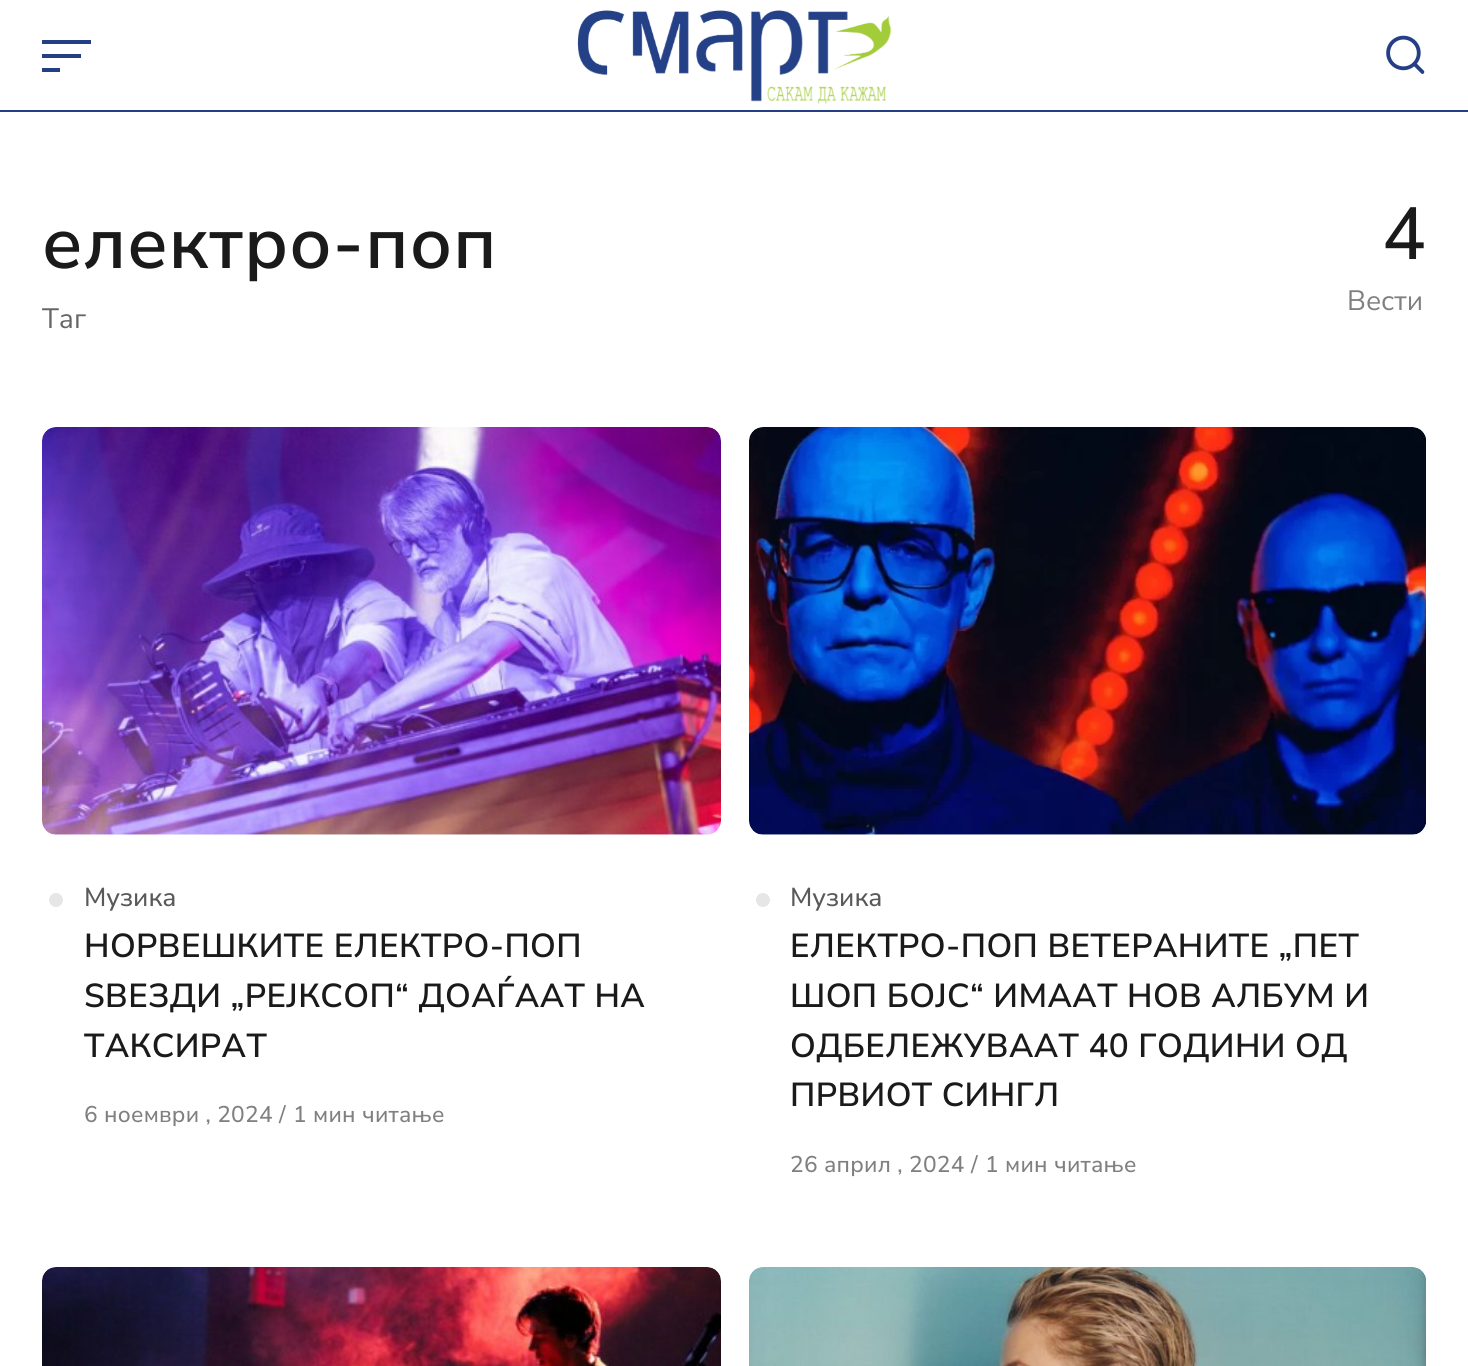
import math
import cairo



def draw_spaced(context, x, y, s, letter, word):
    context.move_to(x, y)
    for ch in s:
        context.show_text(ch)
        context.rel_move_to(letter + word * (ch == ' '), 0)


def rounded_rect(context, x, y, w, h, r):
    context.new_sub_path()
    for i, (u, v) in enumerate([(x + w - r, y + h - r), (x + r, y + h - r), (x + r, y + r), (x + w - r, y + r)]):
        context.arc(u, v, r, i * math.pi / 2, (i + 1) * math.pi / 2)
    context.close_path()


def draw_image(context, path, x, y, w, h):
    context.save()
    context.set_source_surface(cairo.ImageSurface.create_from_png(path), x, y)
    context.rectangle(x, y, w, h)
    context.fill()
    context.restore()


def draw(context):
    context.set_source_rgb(1, 1, 1)
    context.paint()
    context.set_source_rgb(37 / 255, 63 / 255, 133 / 255)
    context.rectangle(0, 110, 1468, 2)
    context.fill()
    context.rectangle(42, 40, 49, 4)
    context.fill()
    context.rectangle(42, 54, 39, 4)
    context.fill()
    context.rectangle(42, 68, 18, 4)
    context.fill()
    draw_image(context, "images/1.png", 577, 10, 315, 94)
    draw_image(context, "images/2.png", 1386, 35, 39, 39)
    context.set_source_rgb(244 / 255, 246 / 255, 248 / 255)
    rounded_rect(context, 42, 427, 679, 408, 14)
    context.fill()
    draw_image(context, "images/3.png", 42, 427, 679, 408)
    context.set_source_rgb(230 / 255, 230 / 255, 230 / 255)
    context.arc(56, 900, 7, 0, 2 * math.pi)
    context.fill()
    context.set_source_rgb(244 / 255, 246 / 255, 248 / 255)
    rounded_rect(context, 749, 427, 677, 408, 14)
    context.fill()
    draw_image(context, "images/4.png", 749, 427, 677, 408)
    context.set_source_rgb(230 / 255, 230 / 255, 230 / 255)
    context.arc(763, 900, 7, 0, 2 * math.pi)
    context.fill()
    context.set_source_rgb(244 / 255, 246 / 255, 248 / 255)
    rounded_rect(context, 42, 1267, 679, 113, 14)
    context.fill()
    draw_image(context, "images/5.png", 42, 1267, 679, 99)
    rounded_rect(context, 749, 1267, 677, 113, 14)
    context.fill()
    draw_image(context, "images/6.png", 749, 1267, 677, 99)
    context.select_font_face("Nunito Sans SemiBold")
    context.set_font_size(73.5)
    context.set_source_rgb(26 / 255, 26 / 255, 26 / 255)
    draw_spaced(context, 42, 268, "електро-поп", 1, 0)
    context.select_font_face("Nunito Sans")
    context.set_font_size(28)
    context.set_source_rgb(102 / 255, 102 / 255, 102 / 255)
    context.move_to(42, 328)
    context.show_text("Таг")
    context.select_font_face("Nunito Sans Medium")
    context.set_font_size(73.5)
    context.set_source_rgb(26 / 255, 26 / 255, 26 / 255)
    context.move_to(1382, 259)
    context.show_text("4")
    context.select_font_face("Nunito Sans")
    context.set_font_size(28)
    context.set_source_rgb(128 / 255, 128 / 255, 128 / 255)
    context.move_to(1347, 310)
    context.show_text("Вести")
    context.select_font_face("Nunito Sans Medium")
    context.set_font_size(26)
    context.set_source_rgb(89 / 255, 89 / 255, 89 / 255)
    context.move_to(84, 906)
    context.show_text("Музика")
    context.select_font_face("Nunito Sans SemiBold")
    context.set_font_size(33.25)
    context.set_source_rgb(26 / 255, 26 / 255, 26 / 255)
    draw_spaced(context, 84, 957, "НОРВЕШКИТЕ ЕЛЕКТРО-ПОП", 0.4, 0)
    draw_spaced(context, 84, 1007, "ЅВЕЗДИ „РЕЈКСОП“ ДОАЃААТ НА", 0.4, 0)
    draw_spaced(context, 84, 1057, "ТАКСИРАТ", 0.4, 0)
    context.select_font_face("Nunito Sans Medium")
    context.set_font_size(22.75)
    context.set_source_rgb(128 / 255, 128 / 255, 128 / 255)
    draw_spaced(context, 84, 1122, "6 ноември , 2024", 0.25, 0)
    draw_spaced(context, 279, 1122, "/", 0.25, 0)
    draw_spaced(context, 293, 1122, "1 мин читање", 0.25, 0)
    context.set_font_size(26)
    context.set_source_rgb(89 / 255, 89 / 255, 89 / 255)
    context.move_to(790, 906)
    context.show_text("Музика")
    context.select_font_face("Nunito Sans SemiBold")
    context.set_font_size(33.25)
    context.set_source_rgb(26 / 255, 26 / 255, 26 / 255)
    draw_spaced(context, 790, 957, "ЕЛЕКТРО-ПОП ВЕТЕРАНИТЕ „ПЕТ", 0.4, 0)
    draw_spaced(context, 790, 1007, "ШОП БОЈС“ ИМААТ НОВ АЛБУМ И", 0.4, 0)
    draw_spaced(context, 790, 1057, "ОДБЕЛЕЖУВААТ 40 ГОДИНИ ОД", 0.4, 0)
    draw_spaced(context, 790, 1106, "ПРВИОТ СИНГЛ", 0.4, 0)
    context.select_font_face("Nunito Sans Medium")
    context.set_font_size(22.75)
    context.set_source_rgb(128 / 255, 128 / 255, 128 / 255)
    draw_spaced(context, 790, 1172, "26 април , 2024", 0.25, 0)
    draw_spaced(context, 971, 1172, "/", 0.25, 0)
    draw_spaced(context, 985, 1172, "1 мин читање", 0.25, 0)


surface = cairo.ImageSurface(cairo.Format.RGB24, 1468, 1366)
context = cairo.Context(surface)
options = cairo.FontOptions()
options.set_hint_metrics(cairo.HintMetrics.OFF)
options.set_hint_style(cairo.HintStyle.NONE)
context.set_font_options(options)
context.set_miter_limit(4)
draw(context)
surface.write_to_png("out.png")
